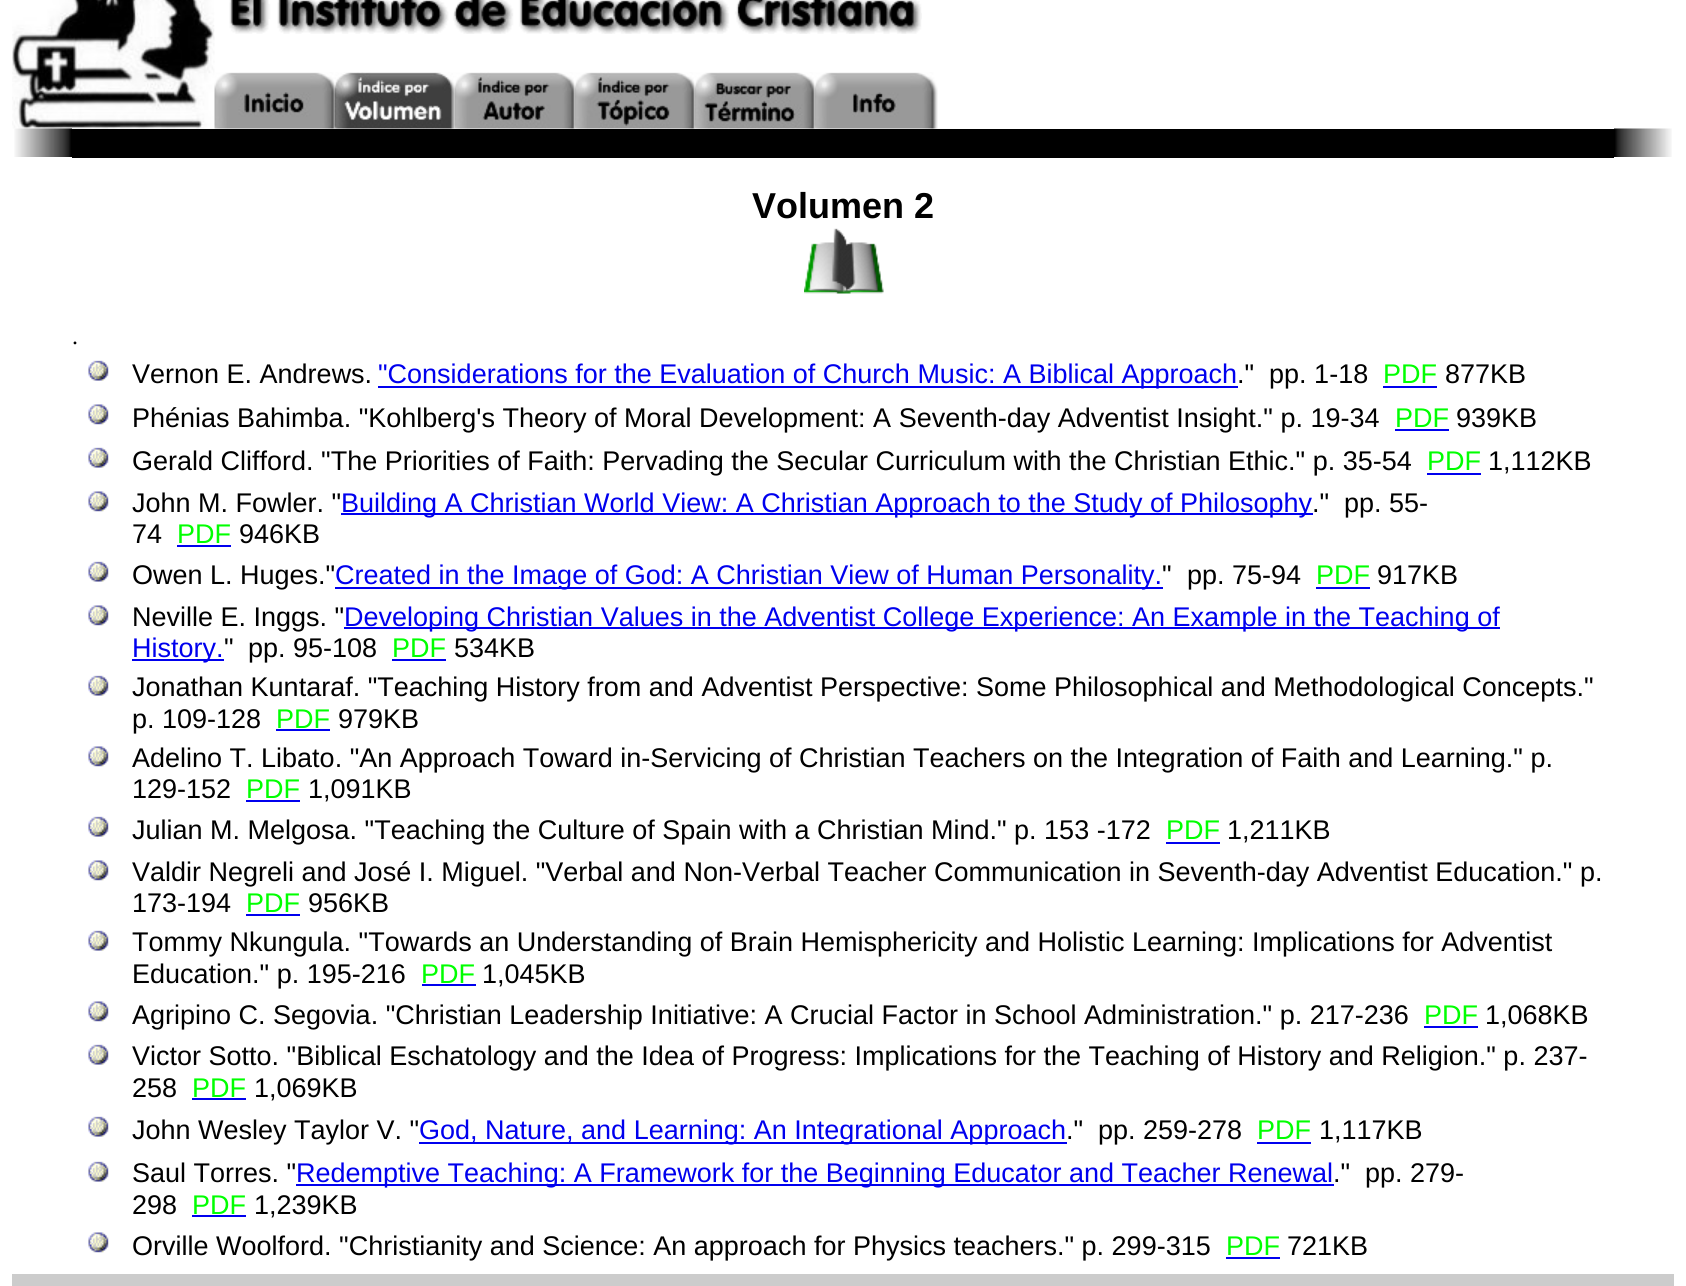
import math
import cairo



def draw_image(context, path, x, y, w, h):
    context.save()
    context.set_source_surface(cairo.ImageSurface.create_from_png(path), x, y)
    context.rectangle(x, y, w, h)
    context.fill()
    context.restore()


def draw(context):
    context.set_source_rgb(1, 1, 1)
    context.paint()
    draw_image(context, "images/1.png", 12, 0, 203, 129)
    draw_image(context, "images/2.png", 214, 0, 708, 34)
    draw_image(context, "images/3.png", 214, 72, 121, 57)
    draw_image(context, "images/4.png", 334, 72, 121, 57)
    draw_image(context, "images/5.png", 454, 72, 121, 57)
    draw_image(context, "images/6.png", 574, 72, 121, 57)
    draw_image(context, "images/7.png", 694, 72, 121, 57)
    draw_image(context, "images/8.png", 814, 72, 124, 57)
    draw_image(context, "images/9.png", 14, 128, 58, 29)
    context.set_source_rgb(0, 0, 0)
    context.rectangle(72, 129, 1542, 29)
    context.fill()
    draw_image(context, "images/10.png", 1614, 128, 58, 29)
    draw_image(context, "images/11.png", 804, 228, 80, 66)
    draw_image(context, "images/12.png", 88, 360, 21, 21)
    context.set_source_rgb(0, 0, 238 / 255)
    context.rectangle(378, 386, 860, 2)
    context.fill()
    context.rectangle(1383, 386, 54, 2)
    context.fill()
    draw_image(context, "images/13.png", 88, 404, 21, 21)
    context.rectangle(1395, 429, 54, 2)
    context.fill()
    draw_image(context, "images/12.png", 88, 447, 21, 21)
    context.rectangle(1427, 473, 54, 2)
    context.fill()
    draw_image(context, "images/13.png", 88, 491, 21, 21)
    context.rectangle(341, 513, 972, 2)
    context.fill()
    context.rectangle(177, 545, 54, 2)
    context.fill()
    draw_image(context, "images/12.png", 88, 561, 21, 21)
    context.rectangle(335, 587, 828, 2)
    context.fill()
    context.rectangle(1316, 587, 54, 2)
    context.fill()
    draw_image(context, "images/13.png", 88, 605, 21, 21)
    context.rectangle(344, 627, 1156, 2)
    context.fill()
    context.rectangle(132, 659, 92, 2)
    context.fill()
    context.rectangle(392, 659, 54, 2)
    context.fill()
    draw_image(context, "images/12.png", 88, 675, 21, 21)
    context.rectangle(276, 729, 54, 2)
    context.fill()
    draw_image(context, "images/13.png", 88, 746, 21, 21)
    context.rectangle(246, 800, 54, 2)
    context.fill()
    draw_image(context, "images/12.png", 88, 816, 21, 21)
    context.rectangle(1166, 842, 54, 2)
    context.fill()
    draw_image(context, "images/13.png", 88, 860, 21, 21)
    context.rectangle(246, 914, 54, 2)
    context.fill()
    draw_image(context, "images/12.png", 88, 930, 21, 21)
    context.rectangle(422, 984, 54, 2)
    context.fill()
    draw_image(context, "images/13.png", 88, 1001, 21, 21)
    context.rectangle(1424, 1026, 54, 2)
    context.fill()
    draw_image(context, "images/12.png", 88, 1044, 21, 21)
    context.rectangle(192, 1098, 54, 2)
    context.fill()
    draw_image(context, "images/12.png", 88, 1116, 21, 21)
    context.rectangle(419, 1142, 648, 2)
    context.fill()
    context.rectangle(1257, 1142, 54, 2)
    context.fill()
    draw_image(context, "images/12.png", 88, 1161, 21, 21)
    context.rectangle(296, 1184, 1038, 2)
    context.fill()
    context.rectangle(192, 1215, 54, 2)
    context.fill()
    draw_image(context, "images/13.png", 88, 1232, 21, 21)
    context.rectangle(1226, 1257, 54, 2)
    context.fill()
    context.set_source_rgb(204 / 255, 204 / 255, 204 / 255)
    context.rectangle(12, 1274, 1662, 12)
    context.fill()
    context.select_font_face("Liberation Sans", cairo.FontSlant.NORMAL, cairo.FontWeight.BOLD)
    context.set_font_size(36)
    context.set_source_rgb(0, 0, 0)
    context.move_to(752, 218)
    context.show_text("Volumen 2")
    context.select_font_face("Liberation Serif")
    context.set_font_size(24)
    context.move_to(72, 344)
    context.show_text(".")
    context.select_font_face("Liberation Sans")
    context.set_font_size(27)
    context.move_to(132, 383)
    context.show_text("Vernon E. Andrews.")
    context.set_source_rgb(0, 0, 238 / 255)
    context.move_to(378, 383)
    context.show_text("\"Considerations for the Evaluation of Church Music: A Biblical Approach")
    context.set_source_rgb(0, 0, 0)
    context.move_to(1237, 383)
    context.show_text(".\"  pp. 1-18")
    context.set_source_rgb(0, 1, 0)
    context.move_to(1383, 383)
    context.show_text("PDF")
    context.set_source_rgb(0, 0, 0)
    context.move_to(1445, 383)
    context.show_text("877KB")
    context.move_to(132, 427)
    context.show_text("Phénias Bahimba. \"Kohlberg's Theory of Moral Development: A Seventh-day Adventist Insight.\" p. 19-34")
    context.set_source_rgb(0, 1, 0)
    context.move_to(1395, 427)
    context.show_text("PDF")
    context.set_source_rgb(0, 0, 0)
    context.move_to(1456, 427)
    context.show_text("939KB")
    context.move_to(132, 470)
    context.show_text("Gerald Clifford. \"The Priorities of Faith: Pervading the Secular Curriculum with the Christian Ethic.\" p. 35-54")
    context.set_source_rgb(0, 1, 0)
    context.move_to(1427, 470)
    context.show_text("PDF")
    context.set_source_rgb(0, 0, 0)
    context.move_to(1488, 470)
    context.show_text("1,112KB")
    context.move_to(132, 512)
    context.show_text("John M. Fowler. \"")
    context.set_source_rgb(0, 0, 238 / 255)
    context.move_to(341, 512)
    context.show_text("Building A Christian World View: A Christian Approach to the Study of Philosophy")
    context.set_source_rgb(0, 0, 0)
    context.move_to(1312, 512)
    context.show_text(".\"")
    context.move_to(1344, 512)
    context.show_text("pp. 55-")
    context.move_to(132, 543)
    context.show_text("74")
    context.set_source_rgb(0, 1, 0)
    context.move_to(177, 543)
    context.show_text("PDF")
    context.set_source_rgb(0, 0, 0)
    context.move_to(239, 543)
    context.show_text("946KB")
    context.move_to(132, 584)
    context.show_text("Owen L. Huges.\"")
    context.set_source_rgb(0, 0, 238 / 255)
    context.move_to(335, 584)
    context.show_text("Created in the Image of God: A Christian View of Human Personality.")
    context.set_source_rgb(0, 0, 0)
    context.move_to(1162, 584)
    context.show_text("\"")
    context.move_to(1187, 584)
    context.show_text("pp. 75-94")
    context.set_source_rgb(0, 1, 0)
    context.move_to(1316, 584)
    context.show_text("PDF")
    context.set_source_rgb(0, 0, 0)
    context.move_to(1377, 584)
    context.show_text("917KB")
    context.move_to(132, 626)
    context.show_text("Neville E. Inggs. \"")
    context.set_source_rgb(0, 0, 238 / 255)
    context.move_to(344, 626)
    context.show_text("Developing Christian Values in the Adventist College Experience: An Example in the Teaching of")
    context.move_to(132, 657)
    context.show_text("History.")
    context.set_source_rgb(0, 0, 0)
    context.move_to(224, 657)
    context.show_text("\"")
    context.move_to(248, 657)
    context.show_text("pp. 95-108")
    context.set_source_rgb(0, 1, 0)
    context.move_to(392, 657)
    context.show_text("PDF")
    context.set_source_rgb(0, 0, 0)
    context.move_to(454, 657)
    context.show_text("534KB")
    context.move_to(132, 696)
    context.show_text("Jonathan Kuntaraf. \"Teaching History from and Adventist Perspective: Some Philosophical and Methodological Concepts.\"")
    context.move_to(132, 728)
    context.show_text("p. 109-128")
    context.set_source_rgb(0, 1, 0)
    context.move_to(276, 728)
    context.show_text("PDF")
    context.set_source_rgb(0, 0, 0)
    context.move_to(338, 728)
    context.show_text("979KB")
    context.move_to(132, 767)
    context.show_text("Adelino T. Libato. \"An Approach Toward in-Servicing of Christian Teachers on the Integration of Faith and Learning.\" p.")
    context.move_to(132, 798)
    context.show_text("129-152")
    context.set_source_rgb(0, 1, 0)
    context.move_to(246, 798)
    context.show_text("PDF")
    context.set_source_rgb(0, 0, 0)
    context.move_to(308, 798)
    context.show_text("1,091KB")
    context.move_to(132, 839)
    context.show_text("Julian M. Melgosa. \"Teaching the Culture of Spain with a Christian Mind.\" p. 153 -172")
    context.set_source_rgb(0, 1, 0)
    context.move_to(1166, 839)
    context.show_text("PDF")
    context.set_source_rgb(0, 0, 0)
    context.move_to(1227, 839)
    context.show_text("1,211KB")
    context.move_to(132, 881)
    context.show_text("Valdir Negreli and José I. Miguel. \"Verbal and Non-Verbal Teacher Communication in Seventh-day Adventist Education.\" p.")
    context.move_to(132, 912)
    context.show_text("173-194")
    context.set_source_rgb(0, 1, 0)
    context.move_to(246, 912)
    context.show_text("PDF")
    context.set_source_rgb(0, 0, 0)
    context.move_to(308, 912)
    context.show_text("956KB")
    context.move_to(132, 951)
    context.show_text("Tommy Nkungula. \"Towards an Understanding of Brain Hemisphericity and Holistic Learning: Implications for Adventist")
    context.move_to(132, 983)
    context.show_text("Education.\" p. 195-216")
    context.set_source_rgb(0, 1, 0)
    context.move_to(421, 983)
    context.show_text("PDF")
    context.set_source_rgb(0, 0, 0)
    context.move_to(482, 983)
    context.show_text("1,045KB")
    context.move_to(132, 1024)
    context.show_text("Agripino C. Segovia. \"Christian Leadership Initiative: A Crucial Factor in School Administration.\" p. 217-236")
    context.set_source_rgb(0, 1, 0)
    context.move_to(1424, 1024)
    context.show_text("PDF")
    context.set_source_rgb(0, 0, 0)
    context.move_to(1485, 1024)
    context.show_text("1,068KB")
    context.move_to(132, 1065)
    context.show_text("Victor Sotto. \"Biblical Eschatology and the Idea of Progress: Implications for the Teaching of History and Religion.\" p. 237-")
    context.move_to(132, 1097)
    context.show_text("258")
    context.set_source_rgb(0, 1, 0)
    context.move_to(192, 1097)
    context.show_text("PDF")
    context.set_source_rgb(0, 0, 0)
    context.move_to(254, 1097)
    context.show_text("1,069KB")
    context.move_to(132, 1139)
    context.show_text("John Wesley Taylor V. \"")
    context.set_source_rgb(0, 0, 238 / 255)
    context.move_to(419, 1139)
    context.show_text("God, Nature, and Learning: An Integrational Approach")
    context.set_source_rgb(0, 0, 0)
    context.move_to(1066, 1139)
    context.show_text(".\"")
    context.move_to(1098, 1139)
    context.show_text("pp. 259-278")
    context.set_source_rgb(0, 1, 0)
    context.move_to(1257, 1139)
    context.show_text("PDF")
    context.set_source_rgb(0, 0, 0)
    context.move_to(1319, 1139)
    context.show_text("1,117KB")
    context.move_to(132, 1182)
    context.show_text("Saul Torres. \"")
    context.set_source_rgb(0, 0, 238 / 255)
    context.move_to(296, 1182)
    context.show_text("Redemptive Teaching: A Framework for the Beginning Educator and Teacher Renewal")
    context.set_source_rgb(0, 0, 0)
    context.move_to(1333, 1182)
    context.show_text(".\"")
    context.move_to(1365, 1182)
    context.show_text("pp. 279-")
    context.move_to(132, 1214)
    context.show_text("298")
    context.set_source_rgb(0, 1, 0)
    context.move_to(192, 1214)
    context.show_text("PDF")
    context.set_source_rgb(0, 0, 0)
    context.move_to(254, 1214)
    context.show_text("1,239KB")
    context.move_to(132, 1255)
    context.show_text("Orville Woolford. \"Christianity and Science: An approach for Physics teachers.\" p. 299-315")
    context.set_source_rgb(0, 1, 0)
    context.move_to(1226, 1255)
    context.show_text("PDF")
    context.set_source_rgb(0, 0, 0)
    context.move_to(1287, 1255)
    context.show_text("721KB")


surface = cairo.ImageSurface(cairo.Format.RGB24, 1686, 1286)
context = cairo.Context(surface)
options = cairo.FontOptions()
options.set_hint_metrics(cairo.HintMetrics.OFF)
options.set_hint_style(cairo.HintStyle.NONE)
context.set_font_options(options)
context.set_miter_limit(4)
draw(context)
surface.write_to_png("out.png")
